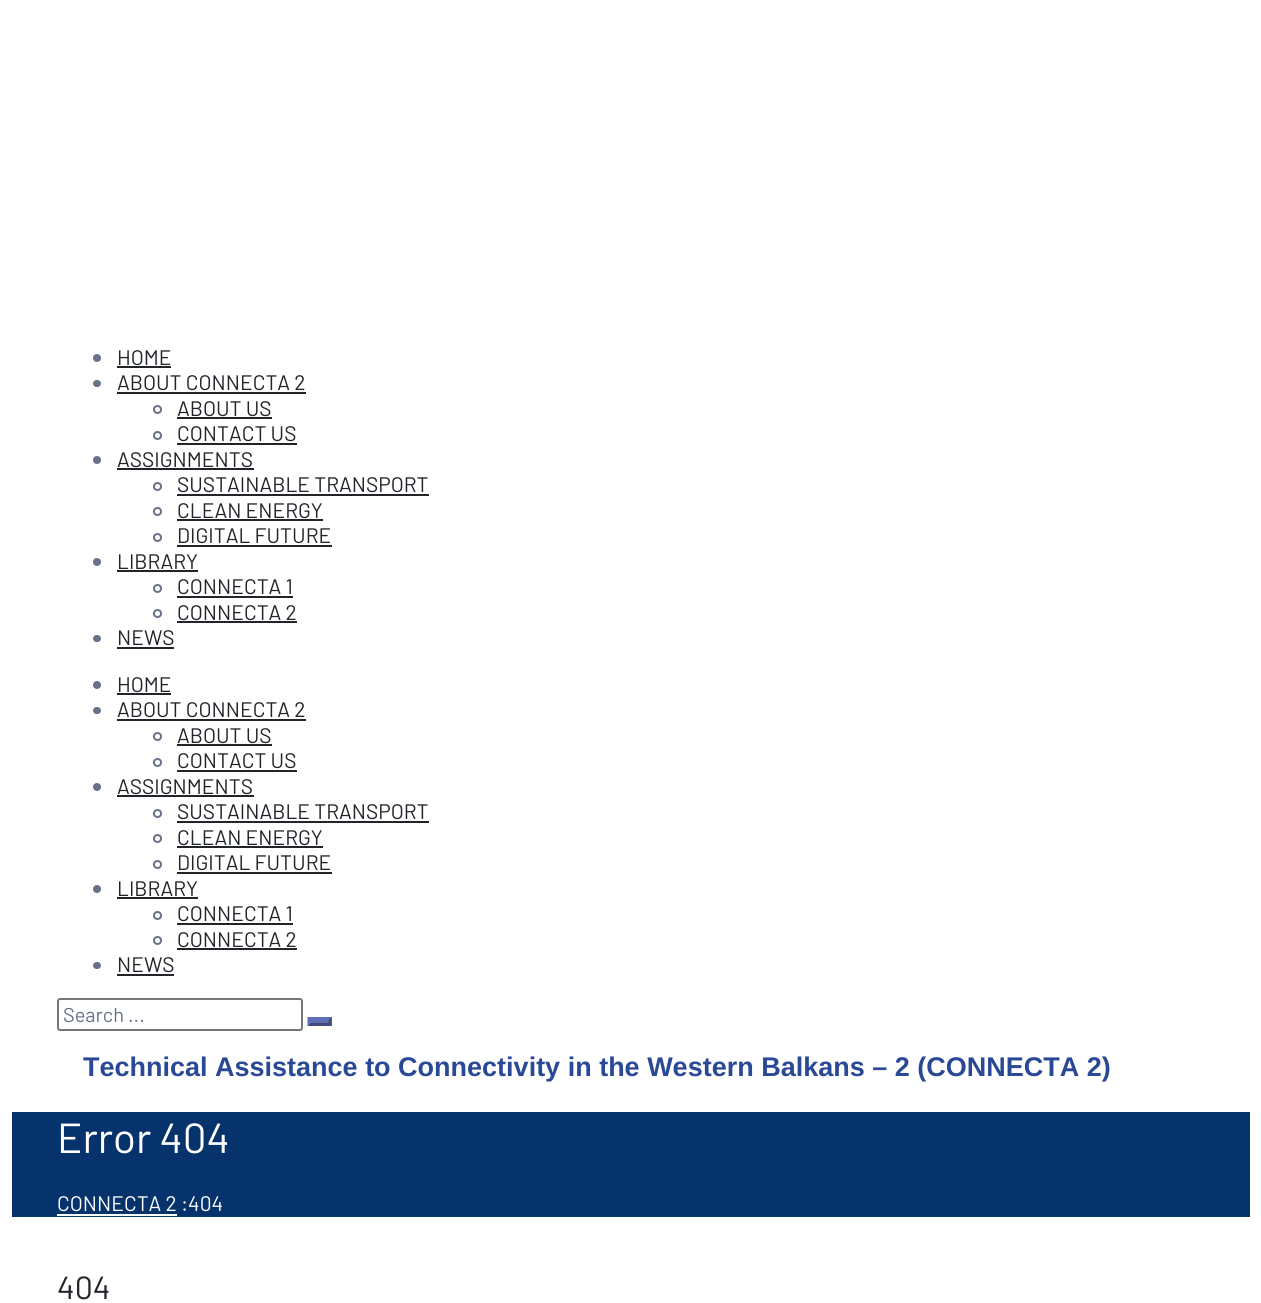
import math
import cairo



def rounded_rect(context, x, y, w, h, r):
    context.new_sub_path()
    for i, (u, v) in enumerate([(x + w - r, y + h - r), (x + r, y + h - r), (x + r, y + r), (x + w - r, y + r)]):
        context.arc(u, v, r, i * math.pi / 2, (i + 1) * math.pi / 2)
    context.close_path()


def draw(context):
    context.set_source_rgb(1, 1, 1)
    context.paint()
    context.set_source_rgb(103 / 255, 114 / 255, 137 / 255)
    context.arc(97, 358, 4, 0, 2 * math.pi)
    context.fill()
    context.set_source_rgb(33 / 255, 37 / 255, 41 / 255)
    context.rectangle(117, 366, 54, 2)
    context.fill()
    context.set_source_rgb(103 / 255, 114 / 255, 137 / 255)
    rounded_rect(context, 93, 380, 8, 7, 3.5)
    context.fill()
    context.set_source_rgb(33 / 255, 37 / 255, 41 / 255)
    context.rectangle(117, 392, 189, 2)
    context.fill()
    context.arc(157.5, 409.5, 3.5, 0, 2 * math.pi)
    context.set_source_rgb(103 / 255, 114 / 255, 137 / 255)
    context.stroke()
    context.set_source_rgb(33 / 255, 37 / 255, 41 / 255)
    context.rectangle(177, 417, 95, 2)
    context.fill()
    context.arc(157.5, 435.5, 3.5, 0, 2 * math.pi)
    context.set_source_rgb(103 / 255, 114 / 255, 137 / 255)
    context.stroke()
    context.set_source_rgb(33 / 255, 37 / 255, 41 / 255)
    context.rectangle(177, 443, 120, 2)
    context.fill()
    context.set_source_rgb(103 / 255, 114 / 255, 137 / 255)
    context.arc(97, 460, 4, 0, 2 * math.pi)
    context.fill()
    context.set_source_rgb(33 / 255, 37 / 255, 41 / 255)
    context.rectangle(117, 468, 137, 2)
    context.fill()
    context.arc(157.5, 486.5, 3.5, 0, 2 * math.pi)
    context.set_source_rgb(103 / 255, 114 / 255, 137 / 255)
    context.stroke()
    context.set_source_rgb(33 / 255, 37 / 255, 41 / 255)
    context.rectangle(177, 494, 252, 2)
    context.fill()
    context.arc(157.5, 511.5, 3.5, 0, 2 * math.pi)
    context.set_source_rgb(103 / 255, 114 / 255, 137 / 255)
    context.stroke()
    context.set_source_rgb(33 / 255, 37 / 255, 41 / 255)
    context.rectangle(177, 519, 146, 2)
    context.fill()
    context.arc(157.5, 537.5, 3.5, 0, 2 * math.pi)
    context.set_source_rgb(103 / 255, 114 / 255, 137 / 255)
    context.stroke()
    context.set_source_rgb(33 / 255, 37 / 255, 41 / 255)
    context.rectangle(177, 545, 155, 2)
    context.fill()
    context.set_source_rgb(103 / 255, 114 / 255, 137 / 255)
    context.arc(97, 562, 4, 0, 2 * math.pi)
    context.fill()
    context.set_source_rgb(33 / 255, 37 / 255, 41 / 255)
    context.rectangle(117, 570, 81, 2)
    context.fill()
    context.arc(157.5, 588.5, 3.5, 0, 2 * math.pi)
    context.set_source_rgb(103 / 255, 114 / 255, 137 / 255)
    context.stroke()
    context.set_source_rgb(33 / 255, 37 / 255, 41 / 255)
    context.rectangle(177, 596, 116, 2)
    context.fill()
    context.arc(157.5, 613.5, 3.5, 0, 2 * math.pi)
    context.set_source_rgb(103 / 255, 114 / 255, 137 / 255)
    context.stroke()
    context.set_source_rgb(33 / 255, 37 / 255, 41 / 255)
    context.rectangle(177, 621, 120, 2)
    context.fill()
    context.set_source_rgb(103 / 255, 114 / 255, 137 / 255)
    rounded_rect(context, 93, 635, 8, 7, 3.5)
    context.fill()
    context.set_source_rgb(33 / 255, 37 / 255, 41 / 255)
    context.rectangle(117, 647, 57, 2)
    context.fill()
    context.set_source_rgb(103 / 255, 114 / 255, 137 / 255)
    context.arc(97, 685, 4, 0, 2 * math.pi)
    context.fill()
    context.set_source_rgb(33 / 255, 37 / 255, 41 / 255)
    context.rectangle(117, 693, 54, 2)
    context.fill()
    context.set_source_rgb(103 / 255, 114 / 255, 137 / 255)
    rounded_rect(context, 93, 707, 8, 7, 3.5)
    context.fill()
    context.set_source_rgb(33 / 255, 37 / 255, 41 / 255)
    context.rectangle(117, 719, 189, 2)
    context.fill()
    context.arc(157.5, 736.5, 3.5, 0, 2 * math.pi)
    context.set_source_rgb(103 / 255, 114 / 255, 137 / 255)
    context.stroke()
    context.set_source_rgb(33 / 255, 37 / 255, 41 / 255)
    context.rectangle(177, 744, 95, 2)
    context.fill()
    context.arc(157.5, 762.5, 3.5, 0, 2 * math.pi)
    context.set_source_rgb(103 / 255, 114 / 255, 137 / 255)
    context.stroke()
    context.set_source_rgb(33 / 255, 37 / 255, 41 / 255)
    context.rectangle(177, 770, 120, 2)
    context.fill()
    context.set_source_rgb(103 / 255, 114 / 255, 137 / 255)
    context.arc(97, 787, 4, 0, 2 * math.pi)
    context.fill()
    context.set_source_rgb(33 / 255, 37 / 255, 41 / 255)
    context.rectangle(117, 795, 137, 2)
    context.fill()
    context.arc(157.5, 813.5, 3.5, 0, 2 * math.pi)
    context.set_source_rgb(103 / 255, 114 / 255, 137 / 255)
    context.stroke()
    context.set_source_rgb(33 / 255, 37 / 255, 41 / 255)
    context.rectangle(177, 821, 252, 2)
    context.fill()
    context.arc(157.5, 838.5, 3.5, 0, 2 * math.pi)
    context.set_source_rgb(103 / 255, 114 / 255, 137 / 255)
    context.stroke()
    context.set_source_rgb(33 / 255, 37 / 255, 41 / 255)
    context.rectangle(177, 846, 146, 2)
    context.fill()
    context.arc(157.5, 864.5, 3.5, 0, 2 * math.pi)
    context.set_source_rgb(103 / 255, 114 / 255, 137 / 255)
    context.stroke()
    context.set_source_rgb(33 / 255, 37 / 255, 41 / 255)
    context.rectangle(177, 872, 155, 2)
    context.fill()
    context.set_source_rgb(103 / 255, 114 / 255, 137 / 255)
    context.arc(97, 889, 4, 0, 2 * math.pi)
    context.fill()
    context.set_source_rgb(33 / 255, 37 / 255, 41 / 255)
    context.rectangle(117, 897, 81, 2)
    context.fill()
    context.arc(157.5, 915.5, 3.5, 0, 2 * math.pi)
    context.set_source_rgb(103 / 255, 114 / 255, 137 / 255)
    context.stroke()
    context.set_source_rgb(33 / 255, 37 / 255, 41 / 255)
    context.rectangle(177, 923, 116, 2)
    context.fill()
    context.arc(157.5, 940.5, 3.5, 0, 2 * math.pi)
    context.set_source_rgb(103 / 255, 114 / 255, 137 / 255)
    context.stroke()
    context.set_source_rgb(33 / 255, 37 / 255, 41 / 255)
    context.rectangle(177, 948, 120, 2)
    context.fill()
    context.set_source_rgb(103 / 255, 114 / 255, 137 / 255)
    rounded_rect(context, 93, 962, 8, 7, 3.5)
    context.fill()
    context.set_source_rgb(33 / 255, 37 / 255, 41 / 255)
    context.rectangle(117, 974, 57, 2)
    context.fill()
    rounded_rect(context, 58, 999, 244, 31, 2)
    context.set_source_rgb(118 / 255, 118 / 255, 118 / 255)
    context.stroke()
    context.set_source_rgb(94 / 255, 111 / 255, 181 / 255)
    context.rectangle(308, 1017, 24, 9)
    context.fill()
    context.new_path()
    context.move_to(307.5, 1017)
    context.line_to(331.5, 1017)
    context.line_to(328.5, 1020)
    context.line_to(310.5, 1020)
    context.close_path()
    context.fill()
    context.set_source_rgb(63 / 255, 74 / 255, 121 / 255)
    context.new_path()
    context.move_to(331.5, 1017)
    context.line_to(331.5, 1026)
    context.line_to(328.5, 1023)
    context.line_to(328.5, 1020)
    context.close_path()
    context.fill()
    context.new_path()
    context.move_to(331.5, 1026)
    context.line_to(307.5, 1026)
    context.line_to(310.5, 1023)
    context.line_to(328.5, 1023)
    context.close_path()
    context.fill()
    context.set_source_rgb(94 / 255, 111 / 255, 181 / 255)
    context.new_path()
    context.move_to(307.5, 1026)
    context.line_to(307.5, 1017)
    context.line_to(310.5, 1020)
    context.line_to(310.5, 1023)
    context.close_path()
    context.fill()
    context.set_source_rgb(7 / 255, 51 / 255, 109 / 255)
    context.rectangle(12, 1112, 1238, 105)
    context.fill()
    context.set_source_rgb(1, 1, 1)
    context.rectangle(57, 1214, 120, 2)
    context.fill()
    context.select_font_face("Barlow")
    context.set_font_size(21)
    context.set_source_rgb(33 / 255, 37 / 255, 41 / 255)
    context.move_to(117, 365)
    context.show_text("HOME")
    context.move_to(117, 390)
    context.show_text("ABOUT CONNECTA 2")
    context.move_to(177, 416)
    context.show_text("ABOUT US")
    context.move_to(177, 441)
    context.show_text("CONTACT US")
    context.move_to(117, 467)
    context.show_text("ASSIGNMENTS")
    context.move_to(177, 492)
    context.show_text("SUSTAINABLE TRANSPORT")
    context.move_to(177, 518)
    context.show_text("CLEAN ENERGY")
    context.move_to(177, 543)
    context.show_text("DIGITAL FUTURE")
    context.move_to(117, 569)
    context.show_text("LIBRARY")
    context.move_to(177, 594)
    context.show_text("CONNECTA 1")
    context.move_to(177, 620)
    context.show_text("CONNECTA 2")
    context.move_to(117, 645)
    context.show_text("NEWS")
    context.move_to(117, 692)
    context.show_text("HOME")
    context.move_to(117, 717)
    context.show_text("ABOUT CONNECTA 2")
    context.move_to(177, 743)
    context.show_text("ABOUT US")
    context.move_to(177, 768)
    context.show_text("CONTACT US")
    context.move_to(117, 794)
    context.show_text("ASSIGNMENTS")
    context.move_to(177, 819)
    context.show_text("SUSTAINABLE TRANSPORT")
    context.move_to(177, 845)
    context.show_text("CLEAN ENERGY")
    context.move_to(177, 870)
    context.show_text("DIGITAL FUTURE")
    context.move_to(117, 896)
    context.show_text("LIBRARY")
    context.move_to(177, 921)
    context.show_text("CONNECTA 1")
    context.move_to(177, 947)
    context.show_text("CONNECTA 2")
    context.move_to(117, 972)
    context.show_text("NEWS")
    context.set_font_size(20)
    context.set_source_rgb(103 / 255, 114 / 255, 137 / 255)
    context.move_to(63, 1022)
    context.show_text("Search ...")
    context.select_font_face("Liberation Sans", cairo.FontSlant.NORMAL, cairo.FontWeight.BOLD)
    context.set_font_size(27)
    context.set_source_rgb(41 / 255, 72 / 255, 150 / 255)
    context.move_to(83, 1076)
    context.show_text("Technical Assistance to Connectivity in the Western Balkans – 2 (CONNECTA 2)")
    context.select_font_face("Barlow")
    context.set_font_size(42)
    context.set_source_rgb(1, 1, 1)
    context.move_to(57, 1153)
    context.show_text("Error 404")
    context.set_font_size(21)
    context.move_to(57, 1211)
    context.show_text("CONNECTA 2 :404")
    context.set_font_size(32)
    context.set_source_rgb(33 / 255, 37 / 255, 41 / 255)
    context.move_to(57, 1299)
    context.show_text("404")


surface = cairo.ImageSurface(cairo.Format.RGB24, 1261, 1303)
context = cairo.Context(surface)
options = cairo.FontOptions()
options.set_hint_metrics(cairo.HintMetrics.OFF)
options.set_hint_style(cairo.HintStyle.NONE)
context.set_font_options(options)
context.set_miter_limit(4)
draw(context)
surface.write_to_png("out.png")
